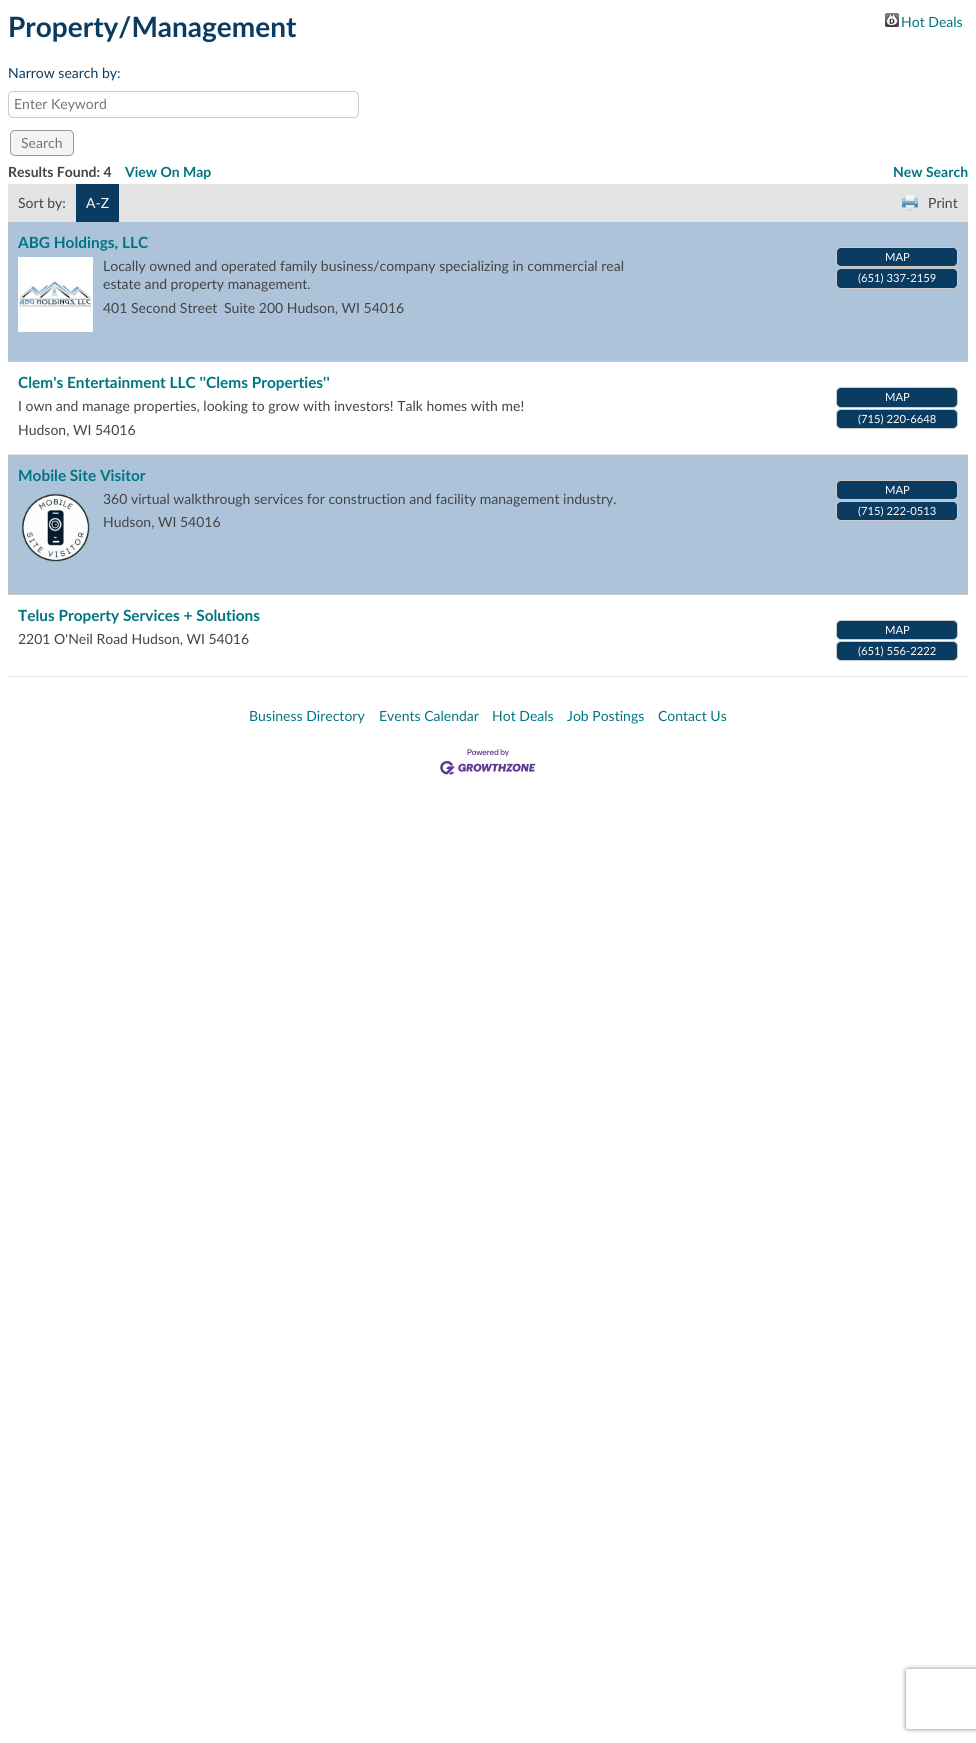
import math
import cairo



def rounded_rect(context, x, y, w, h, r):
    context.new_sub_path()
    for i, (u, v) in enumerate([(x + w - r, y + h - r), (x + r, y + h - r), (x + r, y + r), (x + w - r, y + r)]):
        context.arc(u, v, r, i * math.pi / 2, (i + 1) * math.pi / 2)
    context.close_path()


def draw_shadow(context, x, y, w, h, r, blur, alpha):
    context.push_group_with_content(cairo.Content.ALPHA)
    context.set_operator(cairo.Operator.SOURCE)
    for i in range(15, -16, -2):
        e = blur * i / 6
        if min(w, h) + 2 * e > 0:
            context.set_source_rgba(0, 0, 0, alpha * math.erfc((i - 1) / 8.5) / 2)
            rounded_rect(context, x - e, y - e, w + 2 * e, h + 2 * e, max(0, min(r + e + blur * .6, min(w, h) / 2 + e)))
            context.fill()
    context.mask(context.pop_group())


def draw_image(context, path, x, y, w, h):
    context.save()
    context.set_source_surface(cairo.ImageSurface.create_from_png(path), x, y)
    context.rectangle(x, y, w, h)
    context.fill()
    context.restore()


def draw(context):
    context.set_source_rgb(1, 1, 1)
    context.paint()
    draw_image(context, "images/1.png", 885, 13, 14, 14)
    rounded_rect(context, 8.5, 91.5, 350, 26, 4.5)
    context.set_source_rgb(204 / 255, 204 / 255, 204 / 255)
    context.set_line_width(1)
    context.stroke()
    context.set_source_rgb(244 / 255, 244 / 255, 244 / 255)
    rounded_rect(context, 10.5, 130.5, 63, 25, 4.5)
    context.fill_preserve()
    context.set_source_rgb(153 / 255, 153 / 255, 153 / 255)
    context.stroke()
    context.set_source_rgb(228 / 255, 228 / 255, 228 / 255)
    context.rectangle(8, 184, 960, 38)
    context.fill()
    context.set_source_rgb(10 / 255, 59 / 255, 97 / 255)
    context.rectangle(76, 184, 43, 38)
    context.fill()
    draw_image(context, "images/2.png", 902, 195, 16, 16)
    context.set_source_rgb(172 / 255, 195 / 255, 218 / 255)
    context.rectangle(8, 222, 960, 140)
    context.fill()
    context.new_path()
    context.move_to(8, 361.5)
    context.line_to(968, 361.5)
    context.set_source_rgb(204 / 255, 204 / 255, 204 / 255)
    context.set_dash([1, 1])
    context.stroke()
    draw_image(context, "images/3.png", 18, 257, 75, 75)
    context.set_source_rgb(10 / 255, 59 / 255, 97 / 255)
    rounded_rect(context, 836.5, 247.5, 121, 19, 4.5)
    context.fill_preserve()
    context.set_source_rgb(204 / 255, 204 / 255, 204 / 255)
    context.set_dash([])
    context.stroke()
    context.set_source_rgb(10 / 255, 59 / 255, 97 / 255)
    rounded_rect(context, 836.5, 268.5, 121, 20, 4.5)
    context.fill_preserve()
    context.set_source_rgb(204 / 255, 204 / 255, 204 / 255)
    context.stroke()
    context.new_path()
    context.move_to(8, 454.5)
    context.line_to(968, 454.5)
    context.set_dash([1, 1])
    context.stroke()
    context.set_source_rgb(10 / 255, 59 / 255, 97 / 255)
    rounded_rect(context, 836.5, 387.5, 121, 20, 4.5)
    context.fill_preserve()
    context.set_source_rgb(204 / 255, 204 / 255, 204 / 255)
    context.set_dash([])
    context.stroke()
    context.set_source_rgb(10 / 255, 59 / 255, 97 / 255)
    rounded_rect(context, 836.5, 409.5, 121, 19, 4.5)
    context.fill_preserve()
    context.set_source_rgb(204 / 255, 204 / 255, 204 / 255)
    context.stroke()
    context.set_source_rgb(172 / 255, 195 / 255, 218 / 255)
    context.rectangle(8, 455, 960, 140)
    context.fill()
    context.new_path()
    context.move_to(8, 594.5)
    context.line_to(968, 594.5)
    context.set_source_rgb(204 / 255, 204 / 255, 204 / 255)
    context.set_dash([1, 1])
    context.stroke()
    draw_image(context, "images/4.png", 21, 493, 69, 69)
    context.set_source_rgb(10 / 255, 59 / 255, 97 / 255)
    rounded_rect(context, 836.5, 480.5, 121, 19, 4.5)
    context.fill_preserve()
    context.set_source_rgb(204 / 255, 204 / 255, 204 / 255)
    context.set_dash([])
    context.stroke()
    context.set_source_rgb(10 / 255, 59 / 255, 97 / 255)
    rounded_rect(context, 836.5, 501.5, 121, 19, 4.5)
    context.fill_preserve()
    context.set_source_rgb(204 / 255, 204 / 255, 204 / 255)
    context.stroke()
    context.new_path()
    context.move_to(8, 676.5)
    context.line_to(968, 676.5)
    context.set_dash([1, 1])
    context.stroke()
    context.set_source_rgb(10 / 255, 59 / 255, 97 / 255)
    rounded_rect(context, 836.5, 620.5, 121, 19, 4.5)
    context.fill_preserve()
    context.set_source_rgb(204 / 255, 204 / 255, 204 / 255)
    context.set_dash([])
    context.stroke()
    context.set_source_rgb(10 / 255, 59 / 255, 97 / 255)
    rounded_rect(context, 836.5, 641.5, 121, 19, 4.5)
    context.fill_preserve()
    context.set_source_rgb(204 / 255, 204 / 255, 204 / 255)
    context.stroke()
    draw_image(context, "images/5.png", 440, 749, 96, 26)
    context.save()
    context.set_fill_rule(cairo.FillRule.EVEN_ODD)
    context.new_path()
    context.move_to(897, 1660)
    context.line_to(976, 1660)
    context.line_to(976, 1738)
    context.line_to(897, 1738)
    context.close_path()
    context.move_to(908, 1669)
    context.line_to(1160, 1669)
    context.curve_to(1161, 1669, 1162, 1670, 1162, 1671)
    context.line_to(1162, 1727)
    context.curve_to(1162, 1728, 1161, 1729, 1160, 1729)
    context.line_to(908, 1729)
    context.curve_to(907, 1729, 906, 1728, 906, 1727)
    context.line_to(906, 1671)
    context.curve_to(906, 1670, 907, 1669, 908, 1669)
    context.close_path()
    context.clip()
    context.set_source_rgb(128 / 255, 128 / 255, 128 / 255)
    draw_shadow(context, 906, 1669, 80, 60, 2, 2.5, 1)
    context.restore()
    context.select_font_face("Lato", cairo.FontSlant.NORMAL, cairo.FontWeight.BOLD)
    context.set_font_size(28)
    context.set_source_rgb(10 / 255, 59 / 255, 97 / 255)
    context.move_to(8, 37)
    context.show_text("Property/Management")
    context.select_font_face("Lato")
    context.set_font_size(14)
    context.set_source_rgb(0, 117 / 255, 130 / 255)
    context.move_to(901, 27)
    context.show_text("Hot Deals")
    context.set_source_rgb(10 / 255, 59 / 255, 97 / 255)
    context.move_to(8, 78)
    context.show_text("Narrow search by:")
    context.set_source_rgb(117 / 255, 117 / 255, 117 / 255)
    context.move_to(14, 109)
    context.show_text("Enter Keyword")
    context.move_to(21, 148)
    context.show_text("Search")
    context.select_font_face("Lato", cairo.FontSlant.NORMAL, cairo.FontWeight.BOLD)
    context.set_source_rgb(68 / 255, 68 / 255, 68 / 255)
    context.move_to(8, 177)
    context.show_text("Results Found: 4")
    context.set_source_rgb(0, 117 / 255, 130 / 255)
    context.move_to(125, 177)
    context.show_text("View On Map")
    context.move_to(893, 177)
    context.show_text("New Search")
    context.select_font_face("Lato")
    context.set_source_rgb(68 / 255, 68 / 255, 68 / 255)
    context.move_to(18, 208)
    context.show_text("Sort by:")
    context.set_source_rgb(1, 1, 1)
    context.move_to(86, 208)
    context.show_text("A-Z")
    context.set_source_rgb(68 / 255, 68 / 255, 68 / 255)
    context.move_to(928, 208)
    context.show_text("Print")
    context.select_font_face("Lato", cairo.FontSlant.NORMAL, cairo.FontWeight.BOLD)
    context.set_font_size(15.4)
    context.set_source_rgb(0, 117 / 255, 130 / 255)
    context.move_to(18, 248)
    context.show_text("ABG Holdings, LLC")
    context.select_font_face("Lato")
    context.set_font_size(14)
    context.set_source_rgb(68 / 255, 68 / 255, 68 / 255)
    context.move_to(103, 271)
    context.show_text("Locally owned and operated family business/company specializing in commercial real")
    context.move_to(103, 289)
    context.show_text("estate and property management.")
    context.move_to(103, 313)
    context.show_text("401 Second Street")
    context.move_to(224, 313)
    context.show_text("Suite 200 Hudson, WI 54016")
    context.set_font_size(11.25)
    context.set_source_rgb(1, 1, 1)
    context.move_to(885, 261)
    context.show_text("MAP")
    context.move_to(858, 282)
    context.show_text("(651) 337-2159")
    context.select_font_face("Lato", cairo.FontSlant.NORMAL, cairo.FontWeight.BOLD)
    context.set_font_size(15.4)
    context.set_source_rgb(0, 117 / 255, 130 / 255)
    context.move_to(18, 388)
    context.show_text("Clem's Entertainment LLC ''Clems Properties''")
    context.select_font_face("Lato")
    context.set_font_size(14)
    context.set_source_rgb(68 / 255, 68 / 255, 68 / 255)
    context.move_to(18, 411)
    context.show_text("I own and manage properties, looking to grow with investors! Talk homes with me!")
    context.move_to(18, 435)
    context.show_text("Hudson, WI 54016")
    context.set_font_size(11.25)
    context.set_source_rgb(1, 1, 1)
    context.move_to(885, 401)
    context.show_text("MAP")
    context.move_to(858, 423)
    context.show_text("(715) 220-6648")
    context.select_font_face("Lato", cairo.FontSlant.NORMAL, cairo.FontWeight.BOLD)
    context.set_font_size(15.4)
    context.set_source_rgb(0, 117 / 255, 130 / 255)
    context.move_to(18, 481)
    context.show_text("Mobile Site Visitor")
    context.select_font_face("Lato")
    context.set_font_size(14)
    context.set_source_rgb(68 / 255, 68 / 255, 68 / 255)
    context.move_to(103, 504)
    context.show_text("360 virtual walkthrough services for construction and facility management industry.")
    context.move_to(103, 527)
    context.show_text("Hudson, WI 54016")
    context.set_font_size(11.25)
    context.set_source_rgb(1, 1, 1)
    context.move_to(885, 494)
    context.show_text("MAP")
    context.move_to(858, 515)
    context.show_text("(715) 222-0513")
    context.select_font_face("Lato", cairo.FontSlant.NORMAL, cairo.FontWeight.BOLD)
    context.set_font_size(15.4)
    context.set_source_rgb(0, 117 / 255, 130 / 255)
    context.move_to(18, 621)
    context.show_text("Telus Property Services + Solutions")
    context.select_font_face("Lato")
    context.set_font_size(14)
    context.set_source_rgb(68 / 255, 68 / 255, 68 / 255)
    context.move_to(18, 644)
    context.show_text("2201 O'Neil Road Hudson, WI 54016")
    context.set_font_size(11.25)
    context.set_source_rgb(1, 1, 1)
    context.move_to(885, 634)
    context.show_text("MAP")
    context.move_to(858, 655)
    context.show_text("(651) 556-2222")
    context.set_font_size(14)
    context.set_source_rgb(0, 117 / 255, 130 / 255)
    context.move_to(249, 721)
    context.show_text("Business Directory")
    context.move_to(379, 721)
    context.show_text("Events Calendar")
    context.move_to(492, 721)
    context.show_text("Hot Deals")
    context.move_to(567, 721)
    context.show_text("Job Postings")
    context.move_to(658, 721)
    context.show_text("Contact Us")


surface = cairo.ImageSurface(cairo.Format.RGB24, 976, 1743)
context = cairo.Context(surface)
options = cairo.FontOptions()
options.set_hint_metrics(cairo.HintMetrics.OFF)
options.set_hint_style(cairo.HintStyle.NONE)
context.set_font_options(options)
context.set_miter_limit(4)
draw(context)
surface.write_to_png("out.png")
